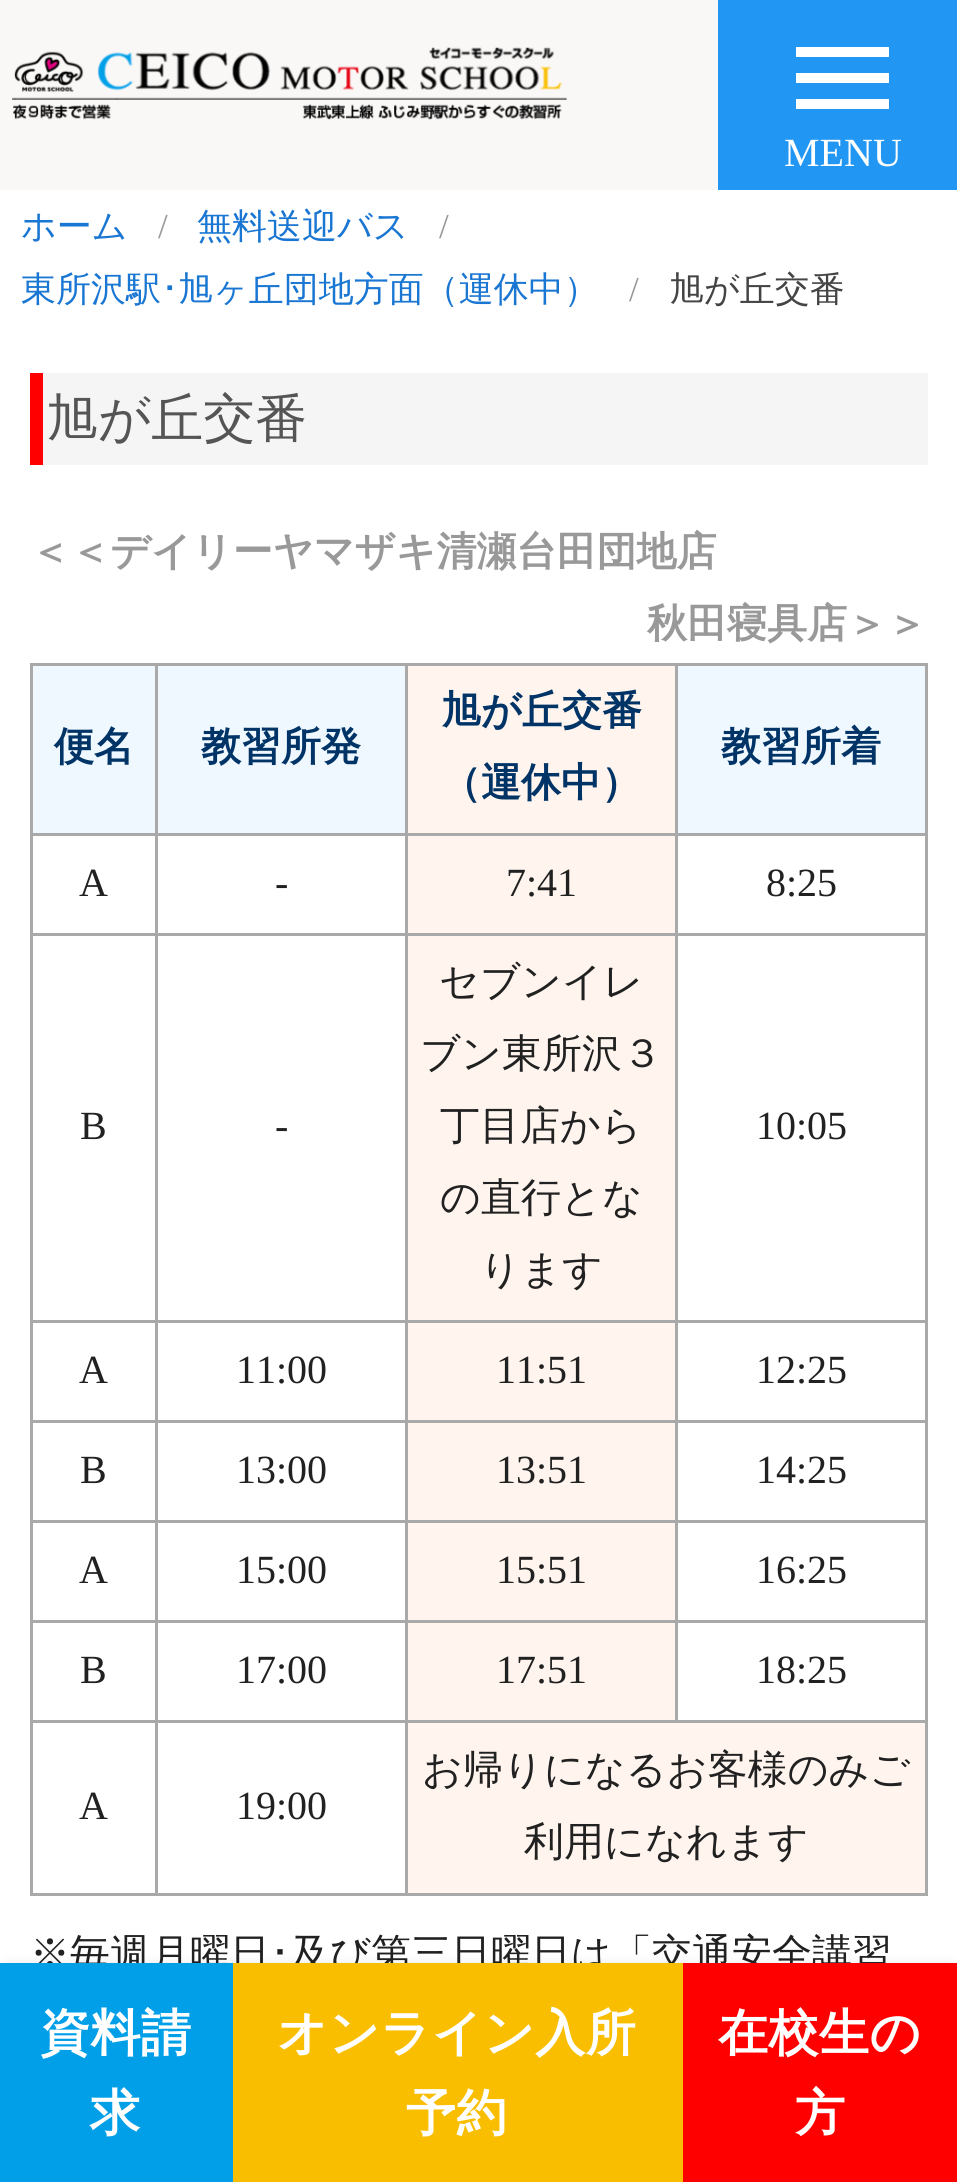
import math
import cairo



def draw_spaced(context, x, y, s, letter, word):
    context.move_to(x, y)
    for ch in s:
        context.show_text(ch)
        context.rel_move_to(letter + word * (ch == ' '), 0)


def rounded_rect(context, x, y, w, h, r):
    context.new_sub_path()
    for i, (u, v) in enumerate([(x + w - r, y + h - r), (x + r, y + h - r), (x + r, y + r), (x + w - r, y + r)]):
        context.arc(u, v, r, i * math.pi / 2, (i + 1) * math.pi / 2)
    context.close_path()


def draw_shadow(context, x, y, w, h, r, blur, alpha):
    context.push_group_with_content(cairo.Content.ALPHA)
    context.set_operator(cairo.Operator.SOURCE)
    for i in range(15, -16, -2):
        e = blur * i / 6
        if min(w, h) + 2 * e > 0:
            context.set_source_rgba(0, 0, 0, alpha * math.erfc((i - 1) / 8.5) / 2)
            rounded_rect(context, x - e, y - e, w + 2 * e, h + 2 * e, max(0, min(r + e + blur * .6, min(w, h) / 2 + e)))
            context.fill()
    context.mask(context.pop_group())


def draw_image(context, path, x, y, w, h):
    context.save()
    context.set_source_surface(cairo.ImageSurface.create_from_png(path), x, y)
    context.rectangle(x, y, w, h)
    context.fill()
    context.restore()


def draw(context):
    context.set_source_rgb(1, 1, 1)
    context.paint()
    context.set_source_rgb(250 / 255, 248 / 255, 247 / 255)
    context.rectangle(0, 0, 718, 190)
    context.fill()
    draw_image(context, "images/1.png", 12, 47, 555, 73)
    context.set_source_rgb(33 / 255, 150 / 255, 243 / 255)
    context.rectangle(718, 0, 239, 190)
    context.fill()
    context.set_source_rgb(1, 1, 1)
    context.new_path()
    context.move_to(796, 47)
    context.line_to(889, 47)
    context.line_to(889, 57)
    context.line_to(796, 57)
    context.close_path()
    context.move_to(796, 73)
    context.line_to(889, 73)
    context.line_to(889, 83)
    context.line_to(796, 83)
    context.close_path()
    context.move_to(796, 99)
    context.line_to(889, 99)
    context.line_to(889, 109)
    context.line_to(796, 109)
    context.close_path()
    context.fill()
    context.set_source_rgb(245 / 255, 245 / 255, 245 / 255)
    context.rectangle(43, 373, 885, 92)
    context.fill()
    context.set_source_rgb(1, 0, 0)
    context.rectangle(30, 373, 13, 92)
    context.fill()
    context.set_source_rgb(240 / 255, 248 / 255, 1)
    context.rectangle(33, 666, 122, 167)
    context.fill()
    context.set_source_rgb(169 / 255, 169 / 255, 169 / 255)
    context.rectangle(675, 663, 253, 3)
    context.fill()
    context.rectangle(675, 833, 253, 3)
    context.fill()
    context.rectangle(675, 933, 253, 3)
    context.fill()
    context.rectangle(675, 1320, 253, 3)
    context.fill()
    context.rectangle(675, 1420, 253, 3)
    context.fill()
    context.rectangle(675, 1520, 253, 3)
    context.fill()
    context.rectangle(675, 1620, 253, 3)
    context.fill()
    context.rectangle(405, 1720, 523, 3)
    context.fill()
    context.rectangle(675, 1620, 3, 103)
    context.fill()
    context.rectangle(405, 1620, 273, 3)
    context.fill()
    context.rectangle(675, 1520, 3, 103)
    context.fill()
    context.rectangle(405, 1520, 273, 3)
    context.fill()
    context.rectangle(675, 1420, 3, 103)
    context.fill()
    context.rectangle(405, 1420, 273, 3)
    context.fill()
    context.rectangle(675, 1320, 3, 103)
    context.fill()
    context.rectangle(405, 1320, 273, 3)
    context.fill()
    context.rectangle(675, 933, 3, 390)
    context.fill()
    context.rectangle(405, 933, 273, 3)
    context.fill()
    context.rectangle(675, 833, 3, 102)
    context.fill()
    context.rectangle(405, 833, 273, 3)
    context.fill()
    context.rectangle(675, 663, 3, 172)
    context.fill()
    context.rectangle(405, 663, 273, 3)
    context.fill()
    context.rectangle(925, 1720, 3, 175)
    context.fill()
    context.rectangle(405, 1893, 523, 3)
    context.fill()
    context.rectangle(405, 1720, 3, 175)
    context.fill()
    context.rectangle(155, 1720, 253, 3)
    context.fill()
    context.rectangle(405, 1620, 3, 103)
    context.fill()
    context.rectangle(155, 1620, 253, 3)
    context.fill()
    context.rectangle(405, 1520, 3, 103)
    context.fill()
    context.rectangle(155, 1520, 253, 3)
    context.fill()
    context.rectangle(405, 1420, 3, 103)
    context.fill()
    context.rectangle(155, 1420, 253, 3)
    context.fill()
    context.rectangle(405, 1320, 3, 103)
    context.fill()
    context.rectangle(155, 1320, 253, 3)
    context.fill()
    context.rectangle(405, 933, 3, 390)
    context.fill()
    context.rectangle(155, 933, 253, 3)
    context.fill()
    context.rectangle(405, 833, 3, 102)
    context.fill()
    context.rectangle(155, 833, 253, 3)
    context.fill()
    context.rectangle(405, 663, 3, 172)
    context.fill()
    context.rectangle(155, 663, 253, 3)
    context.fill()
    context.rectangle(155, 1893, 253, 3)
    context.fill()
    context.rectangle(155, 1720, 3, 175)
    context.fill()
    context.rectangle(30, 1720, 128, 3)
    context.fill()
    context.rectangle(155, 1620, 3, 103)
    context.fill()
    context.rectangle(30, 1620, 128, 3)
    context.fill()
    context.rectangle(155, 1520, 3, 103)
    context.fill()
    context.rectangle(30, 1520, 128, 3)
    context.fill()
    context.rectangle(155, 1420, 3, 103)
    context.fill()
    context.rectangle(30, 1420, 128, 3)
    context.fill()
    context.rectangle(155, 1320, 3, 103)
    context.fill()
    context.rectangle(30, 1320, 128, 3)
    context.fill()
    context.rectangle(155, 933, 3, 390)
    context.fill()
    context.rectangle(30, 933, 128, 3)
    context.fill()
    context.rectangle(155, 833, 3, 102)
    context.fill()
    context.rectangle(30, 833, 128, 3)
    context.fill()
    context.rectangle(155, 663, 3, 172)
    context.fill()
    context.rectangle(30, 663, 128, 3)
    context.fill()
    context.rectangle(30, 1893, 128, 3)
    context.fill()
    context.rectangle(30, 1720, 3, 175)
    context.fill()
    context.rectangle(30, 1620, 3, 103)
    context.fill()
    context.rectangle(30, 1520, 3, 103)
    context.fill()
    context.rectangle(30, 1420, 3, 103)
    context.fill()
    context.rectangle(30, 1320, 3, 103)
    context.fill()
    context.rectangle(30, 933, 3, 390)
    context.fill()
    context.rectangle(30, 833, 3, 102)
    context.fill()
    context.rectangle(30, 663, 3, 172)
    context.fill()
    context.set_source_rgb(240 / 255, 248 / 255, 1)
    context.rectangle(158, 666, 247, 167)
    context.fill()
    context.set_source_rgb(1, 245 / 255, 238 / 255)
    context.rectangle(408, 666, 267, 167)
    context.fill()
    context.set_source_rgb(240 / 255, 248 / 255, 1)
    context.rectangle(678, 666, 247, 167)
    context.fill()
    context.set_source_rgb(169 / 255, 169 / 255, 169 / 255)
    context.rectangle(925, 1620, 3, 103)
    context.fill()
    context.rectangle(925, 1520, 3, 103)
    context.fill()
    context.rectangle(925, 1420, 3, 103)
    context.fill()
    context.rectangle(925, 1320, 3, 103)
    context.fill()
    context.rectangle(925, 933, 3, 390)
    context.fill()
    context.rectangle(925, 833, 3, 102)
    context.fill()
    context.rectangle(925, 663, 3, 172)
    context.fill()
    context.set_source_rgb(1, 245 / 255, 238 / 255)
    context.rectangle(408, 836, 267, 97)
    context.fill()
    context.rectangle(408, 936, 267, 384)
    context.fill()
    context.rectangle(408, 1323, 267, 97)
    context.fill()
    context.rectangle(408, 1423, 267, 97)
    context.fill()
    context.rectangle(408, 1523, 267, 97)
    context.fill()
    context.rectangle(408, 1623, 267, 97)
    context.fill()
    context.rectangle(408, 1723, 517, 170)
    context.fill()
    context.set_source_rgb(0, 0, 0)
    draw_shadow(context, 0, 1965, 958, 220, 10, 6, 0.12)
    context.select_font_face("Liberation Serif")
    context.set_font_size(40)
    context.set_source_rgb(1, 1, 1)
    context.move_to(784, 166)
    context.show_text("MENU")
    context.select_font_face("WenQuanYi Zen Hei Medium")
    context.set_font_size(35)
    context.set_source_rgb(25 / 255, 118 / 255, 210 / 255)
    context.move_to(21, 238)
    context.show_text("ホーム")
    context.select_font_face("Liberation Serif")
    context.set_source_rgb(153 / 255, 153 / 255, 153 / 255)
    context.move_to(158, 238)
    context.show_text("/")
    context.select_font_face("WenQuanYi Zen Hei Medium")
    context.set_source_rgb(25 / 255, 118 / 255, 210 / 255)
    context.move_to(197, 238)
    context.show_text("無料送迎バス")
    context.select_font_face("Liberation Serif")
    context.set_source_rgb(153 / 255, 153 / 255, 153 / 255)
    context.move_to(439, 238)
    context.show_text("/")
    context.select_font_face("WenQuanYi Zen Hei Medium")
    context.set_source_rgb(25 / 255, 118 / 255, 210 / 255)
    context.move_to(21, 301)
    context.show_text("東所沢駅")
    context.select_font_face("IPAPGothic")
    context.move_to(161, 301)
    context.show_text("･")
    context.select_font_face("WenQuanYi Zen Hei Medium")
    context.move_to(178, 301)
    context.show_text("旭ヶ丘団地方面（運休中）")
    context.select_font_face("Liberation Serif")
    context.set_source_rgb(153 / 255, 153 / 255, 153 / 255)
    context.move_to(629, 301)
    context.show_text("/")
    context.select_font_face("WenQuanYi Zen Hei Medium")
    context.set_source_rgb(68 / 255, 68 / 255, 68 / 255)
    context.move_to(669, 301)
    context.show_text("旭が丘交番")
    context.set_font_size(52)
    context.set_source_rgb(85 / 255, 85 / 255, 85 / 255)
    context.move_to(46, 436)
    context.show_text("旭が丘交番")
    context.select_font_face("WenQuanYi Zen Hei", cairo.FontSlant.NORMAL, cairo.FontWeight.BOLD)
    context.set_font_size(40)
    context.set_source_rgb(153 / 255, 153 / 255, 153 / 255)
    context.move_to(30, 565)
    context.show_text("＜＜デイリーヤマザキ清瀬台田団地店")
    context.move_to(647, 637)
    context.show_text("秋田寝具店＞＞")
    context.set_source_rgb(0, 51 / 255, 102 / 255)
    context.move_to(54, 760)
    context.show_text("便名")
    context.move_to(201, 760)
    context.show_text("教習所発")
    context.move_to(441, 724)
    context.show_text("旭が丘交番")
    context.move_to(441, 796)
    context.show_text("（運休中）")
    context.move_to(721, 760)
    context.show_text("教習所着")
    context.select_font_face("Liberation Serif")
    context.set_source_rgb(33 / 255, 33 / 255, 33 / 255)
    context.move_to(79, 896)
    context.show_text("A")
    context.move_to(275, 896)
    context.show_text("-")
    context.move_to(506, 896)
    context.show_text("7:41")
    context.move_to(766, 896)
    context.show_text("8:25")
    context.move_to(80, 1139)
    context.show_text("B")
    context.move_to(275, 1139)
    context.show_text("-")
    context.select_font_face("WenQuanYi Zen Hei Medium")
    context.move_to(439, 995)
    context.show_text("セブンイレ")
    context.move_to(420, 1067)
    context.show_text("ブン東所沢３")
    context.move_to(440, 1139)
    context.show_text("丁目店から")
    context.move_to(440, 1211)
    context.show_text("の直行とな")
    context.move_to(480, 1283)
    context.show_text("ります")
    context.select_font_face("Liberation Serif")
    context.move_to(756, 1139)
    context.show_text("10:05")
    context.move_to(79, 1383)
    context.show_text("A")
    context.move_to(236, 1383)
    context.show_text("11:00")
    context.move_to(496, 1383)
    context.show_text("11:51")
    context.move_to(756, 1383)
    context.show_text("12:25")
    context.move_to(80, 1483)
    context.show_text("B")
    context.move_to(236, 1483)
    context.show_text("13:00")
    context.move_to(496, 1483)
    context.show_text("13:51")
    context.move_to(756, 1483)
    context.show_text("14:25")
    context.move_to(79, 1583)
    context.show_text("A")
    context.move_to(236, 1583)
    context.show_text("15:00")
    context.move_to(496, 1583)
    context.show_text("15:51")
    context.move_to(756, 1583)
    context.show_text("16:25")
    context.move_to(80, 1683)
    context.show_text("B")
    context.move_to(236, 1683)
    context.show_text("17:00")
    context.move_to(496, 1683)
    context.show_text("17:51")
    context.move_to(756, 1683)
    context.show_text("18:25")
    context.move_to(79, 1819)
    context.show_text("A")
    context.move_to(236, 1819)
    context.show_text("19:00")
    context.select_font_face("WenQuanYi Zen Hei Medium")
    context.move_to(422, 1783)
    context.show_text("お帰りになるお客様のみご")
    context.move_to(524, 1855)
    context.show_text("利用になれます")
    context.move_to(30, 1967)
    context.show_text("※毎週月曜日")
    context.select_font_face("IPAPGothic")
    context.move_to(270, 1967)
    context.show_text("･")
    context.select_font_face("WenQuanYi Zen Hei Medium")
    context.move_to(290, 1967)
    context.show_text("及び第三日曜日は「交通安全講習")
    context.set_source_rgb(0, 159 / 255, 232 / 255)
    context.rectangle(0, 1963, 233, 219)
    context.fill()
    context.select_font_face("WenQuanYi Zen Hei", cairo.FontSlant.NORMAL, cairo.FontWeight.BOLD)
    context.set_font_size(50)
    context.set_source_rgb(1, 1, 1)
    draw_spaced(context, 40, 2050, "資料請", 0.5, 0)
    draw_spaced(context, 90, 2130, "求", 0.5, 0)
    context.set_source_rgb(249 / 255, 190 / 255, 0)
    context.rectangle(233, 1963, 450, 219)
    context.fill()
    context.set_source_rgb(1, 1, 1)
    draw_spaced(context, 277, 2050, "オンライン入所", 0.5, 0)
    draw_spaced(context, 406, 2130, "予約", 0.5, 0)
    context.set_source_rgb(1, 0, 0)
    context.rectangle(683, 1963, 274, 219)
    context.fill()
    context.set_source_rgb(1, 1, 1)
    draw_spaced(context, 718, 2050, "在校生の", 0.5, 0)
    draw_spaced(context, 795, 2130, "方", 0.5, 0)


surface = cairo.ImageSurface(cairo.Format.RGB24, 957, 2182)
context = cairo.Context(surface)
options = cairo.FontOptions()
options.set_hint_metrics(cairo.HintMetrics.OFF)
options.set_hint_style(cairo.HintStyle.NONE)
context.set_font_options(options)
context.set_miter_limit(4)
draw(context)
surface.write_to_png("out.png")
